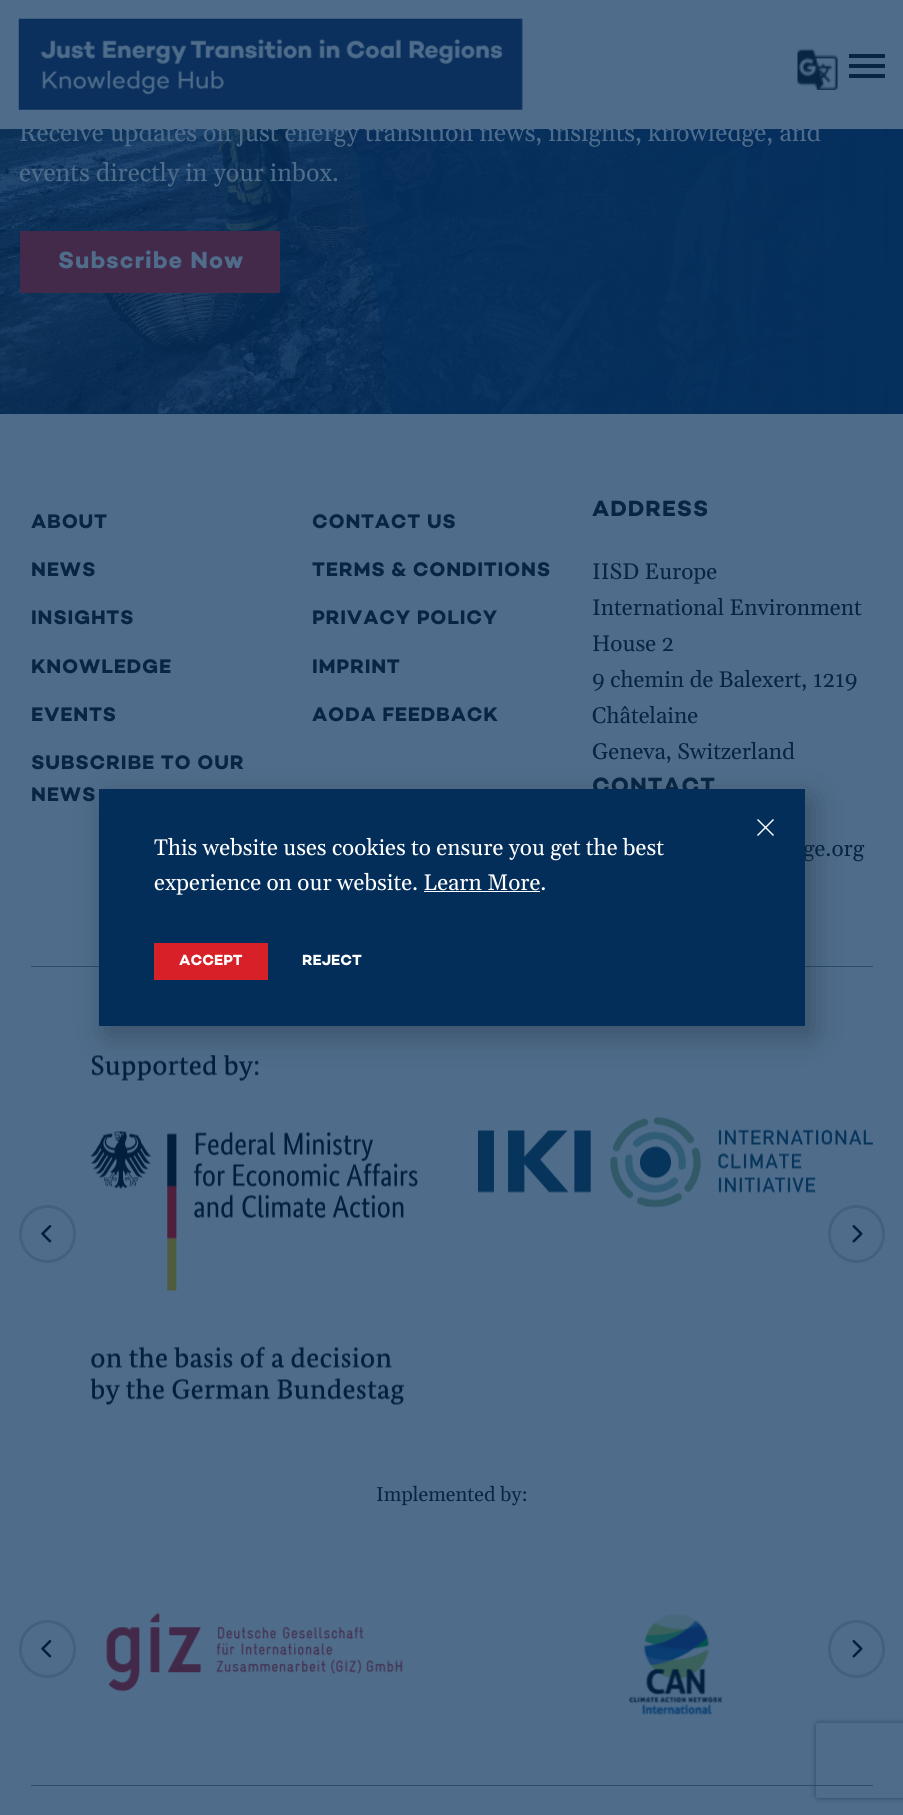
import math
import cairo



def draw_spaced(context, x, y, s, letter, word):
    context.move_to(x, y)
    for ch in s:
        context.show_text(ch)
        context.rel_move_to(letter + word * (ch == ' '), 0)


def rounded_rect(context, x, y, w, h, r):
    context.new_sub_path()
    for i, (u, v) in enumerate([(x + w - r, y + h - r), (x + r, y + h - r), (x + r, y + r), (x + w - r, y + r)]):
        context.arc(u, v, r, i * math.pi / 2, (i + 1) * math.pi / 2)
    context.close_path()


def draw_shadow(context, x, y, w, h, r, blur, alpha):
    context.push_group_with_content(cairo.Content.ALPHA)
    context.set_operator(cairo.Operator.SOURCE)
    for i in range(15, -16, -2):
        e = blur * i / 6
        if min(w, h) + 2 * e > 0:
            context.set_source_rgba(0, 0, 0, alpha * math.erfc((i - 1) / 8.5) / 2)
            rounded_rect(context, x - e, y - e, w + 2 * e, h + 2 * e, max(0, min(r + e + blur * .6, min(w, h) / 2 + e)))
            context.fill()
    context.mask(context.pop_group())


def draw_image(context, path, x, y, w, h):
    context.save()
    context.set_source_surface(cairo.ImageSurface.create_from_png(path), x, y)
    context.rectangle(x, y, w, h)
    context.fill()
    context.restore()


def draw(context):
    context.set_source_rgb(79 / 255, 109 / 255, 139 / 255)
    context.paint()
    context.set_source_rgb(5 / 255, 47 / 255, 93 / 255)
    context.rectangle(0, 413, 895, 1)
    context.fill()
    draw_image(context, "images/3.png", 0, 129, 895, 285)
    gradient = cairo.LinearGradient(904, 142, -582, 143)
    gradient.add_color_stop_rgba(0, 5 / 255, 47 / 255, 93 / 255, 1)
    gradient.add_color_stop_rgba(1, 5 / 255, 47 / 255, 93 / 255, 0)
    context.set_source(gradient)
    context.rectangle(0, 129, 903, 285)
    context.fill()
    context.set_source_rgba(5 / 255, 47 / 255, 93 / 255, 0.6)
    context.new_path()
    context.move_to(316, -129)
    context.line_to(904, -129)
    context.line_to(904, 414)
    context.line_to(393, 414)
    context.close_path()
    context.fill()
    context.set_source_rgb(79 / 255, 109 / 255, 139 / 255)
    context.rectangle(334, 0, 569, 129)
    context.fill()
    draw_image(context, "images/1.png", 18, 18, 505, 92)
    draw_image(context, "images/2.png", 797, 48, 41, 42)
    context.set_source_rgb(8 / 255, 38 / 255, 68 / 255)
    context.rectangle(849, 54, 36, 4)
    context.fill()
    context.rectangle(849, 64, 36, 4)
    context.fill()
    context.rectangle(849, 74, 36, 4)
    context.fill()
    context.set_source_rgb(67 / 255, 42 / 255, 74 / 255)
    context.rectangle(20, 231, 260, 62)
    context.fill()
    context.set_source_rgb(45 / 255, 76 / 255, 106 / 255)
    context.rectangle(31, 966, 842, 1)
    context.fill()
    rounded_rect(context, 20.5, 1206.5, 54, 55, 27)
    context.set_source_rgb(67 / 255, 97 / 255, 127 / 255)
    context.set_line_width(3)
    context.stroke()
    draw_image(context, "images/4.png", 41, 1225, 11, 18)
    draw_image(context, "images/5.png", 90, 1055, 328, 350)
    draw_image(context, "images/6.png", 478, 1117, 395, 91)
    rounded_rect(context, 829.5, 1206.5, 54, 55, 27)
    context.stroke()
    draw_image(context, "images/7.png", 852, 1225, 11, 18)
    context.set_source_rgb(45 / 255, 76 / 255, 106 / 255)
    context.rectangle(31, 1785, 842, 1)
    context.fill()
    rounded_rect(context, 20.5, 1621.5, 54, 55, 27)
    context.set_source_rgb(67 / 255, 97 / 255, 127 / 255)
    context.stroke()
    draw_image(context, "images/4.png", 41, 1640, 11, 18)
    draw_image(context, "images/8.png", 106, 1613, 297, 79)
    draw_image(context, "images/9.png", 628, 1614, 95, 102)
    rounded_rect(context, 829.5, 1621.5, 54, 55, 27)
    context.stroke()
    draw_image(context, "images/7.png", 852, 1640, 11, 18)
    context.set_source_rgb(0, 0, 0)
    draw_shadow(context, 106, 799, 707, 237, 0, 17, 0.25)
    context.save()
    context.set_fill_rule(cairo.FillRule.EVEN_ODD)
    context.new_path()
    context.move_to(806, 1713)
    context.line_to(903, 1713)
    context.line_to(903, 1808)
    context.line_to(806, 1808)
    context.close_path()
    context.move_to(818.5, 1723)
    context.line_to(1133.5, 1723)
    context.curve_to(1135, 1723, 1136, 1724, 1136, 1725.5)
    context.line_to(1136, 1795.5)
    context.curve_to(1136, 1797, 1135, 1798, 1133.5, 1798)
    context.line_to(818.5, 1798)
    context.curve_to(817, 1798, 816, 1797, 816, 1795.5)
    context.line_to(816, 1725.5)
    context.curve_to(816, 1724, 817, 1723, 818.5, 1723)
    context.close_path()
    context.clip()
    context.set_source_rgb(41 / 255, 71 / 255, 101 / 255)
    draw_shadow(context, 816, 1723, 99, 75, 2.5, 3, 1)
    context.restore()
    context.select_font_face("Gelasio")
    context.set_font_size(25)
    context.set_source_rgb(79 / 255, 109 / 255, 139 / 255)
    context.move_to(19, 141)
    context.show_text("Receive updates on just energy transition news, insights, knowledge, and")
    context.move_to(19, 181)
    context.show_text("events directly in your inbox.")
    context.select_font_face("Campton", cairo.FontSlant.NORMAL, cairo.FontWeight.BOLD)
    context.set_font_size(23.75)
    draw_spaced(context, 58, 268, "Subscribe Now", 1, 0)
    context.set_font_size(20)
    context.set_source_rgb(8 / 255, 38 / 255, 68 / 255)
    draw_spaced(context, 31, 528, "ABOUT", 0.75, 0)
    draw_spaced(context, 31, 576, "NEWS", 0.75, 0)
    draw_spaced(context, 31, 624, "INSIGHTS", 0.75, 0)
    draw_spaced(context, 31, 673, "KNOWLEDGE", 0.75, 0)
    draw_spaced(context, 31, 721, "EVENTS", 0.75, 0)
    draw_spaced(context, 31, 769, "SUBSCRIBE TO OUR", 0.75, 0)
    draw_spaced(context, 31, 801, "NEWS", 0.75, 0)
    draw_spaced(context, 312, 528, "CONTACT US", 0.75, 0)
    draw_spaced(context, 312, 576, "TERMS & CONDITIONS", 0.75, 0)
    draw_spaced(context, 312, 624, "PRIVACY POLICY", 0.75, 0)
    draw_spaced(context, 312, 673, "IMPRINT", 0.75, 0)
    draw_spaced(context, 312, 721, "AODA FEEDBACK", 0.75, 0)
    context.set_font_size(22.5)
    draw_spaced(context, 592, 516, "ADDRESS", 1, 0)
    context.select_font_face("Gelasio")
    context.move_to(592, 579)
    context.show_text("IISD Europe")
    context.move_to(592, 615)
    context.show_text("International Environment")
    context.move_to(592, 651)
    context.show_text("House 2")
    context.move_to(592, 687)
    context.show_text("9 chemin de Balexert, 1219")
    context.move_to(592, 723)
    context.show_text("Châtelaine")
    context.move_to(592, 759)
    context.show_text("Geneva, Switzerland")
    context.select_font_face("Campton", cairo.FontSlant.NORMAL, cairo.FontWeight.BOLD)
    draw_spaced(context, 592, 793, "CONTACT", 1, 0)
    context.select_font_face("Gelasio")
    context.move_to(803, 856)
    context.show_text("ge.org")
    context.set_font_size(20)
    context.move_to(376, 1501)
    context.show_text("Implemented by:")
    context.set_source_rgb(3 / 255, 46 / 255, 89 / 255)
    context.rectangle(99, 789, 706, 237)
    context.fill()
    context.set_font_size(22.5)
    context.set_source_rgb(1, 1, 1)
    context.move_to(154, 855)
    context.show_text("This website uses cookies to ensure you get the best")
    context.move_to(154, 890)
    context.show_text("experience on our website. Learn More.")
    context.rectangle(424, 891, 116, 1)
    context.fill()
    context.new_path()
    context.move_to(773, 819)
    context.line_to(774, 820)
    context.line_to(758, 836)
    context.line_to(757, 835)
    context.close_path()
    context.fill()
    context.new_path()
    context.move_to(757, 820)
    context.line_to(758, 819)
    context.line_to(774, 835)
    context.line_to(773, 836)
    context.close_path()
    context.fill()
    context.set_source_rgb(215 / 255, 32 / 255, 39 / 255)
    context.rectangle(154, 943, 114, 37)
    context.fill()
    context.select_font_face("Campton", cairo.FontSlant.NORMAL, cairo.FontWeight.BOLD)
    context.set_font_size(15)
    context.set_source_rgb(1, 1, 1)
    context.move_to(179, 965)
    context.show_text("ACCEPT")
    context.move_to(302, 965)
    context.show_text("REJECT")


surface = cairo.ImageSurface(cairo.Format.RGB24, 903, 1815)
context = cairo.Context(surface)
options = cairo.FontOptions()
options.set_hint_metrics(cairo.HintMetrics.OFF)
options.set_hint_style(cairo.HintStyle.NONE)
context.set_font_options(options)
context.set_miter_limit(4)
draw(context)
surface.write_to_png("out.png")
